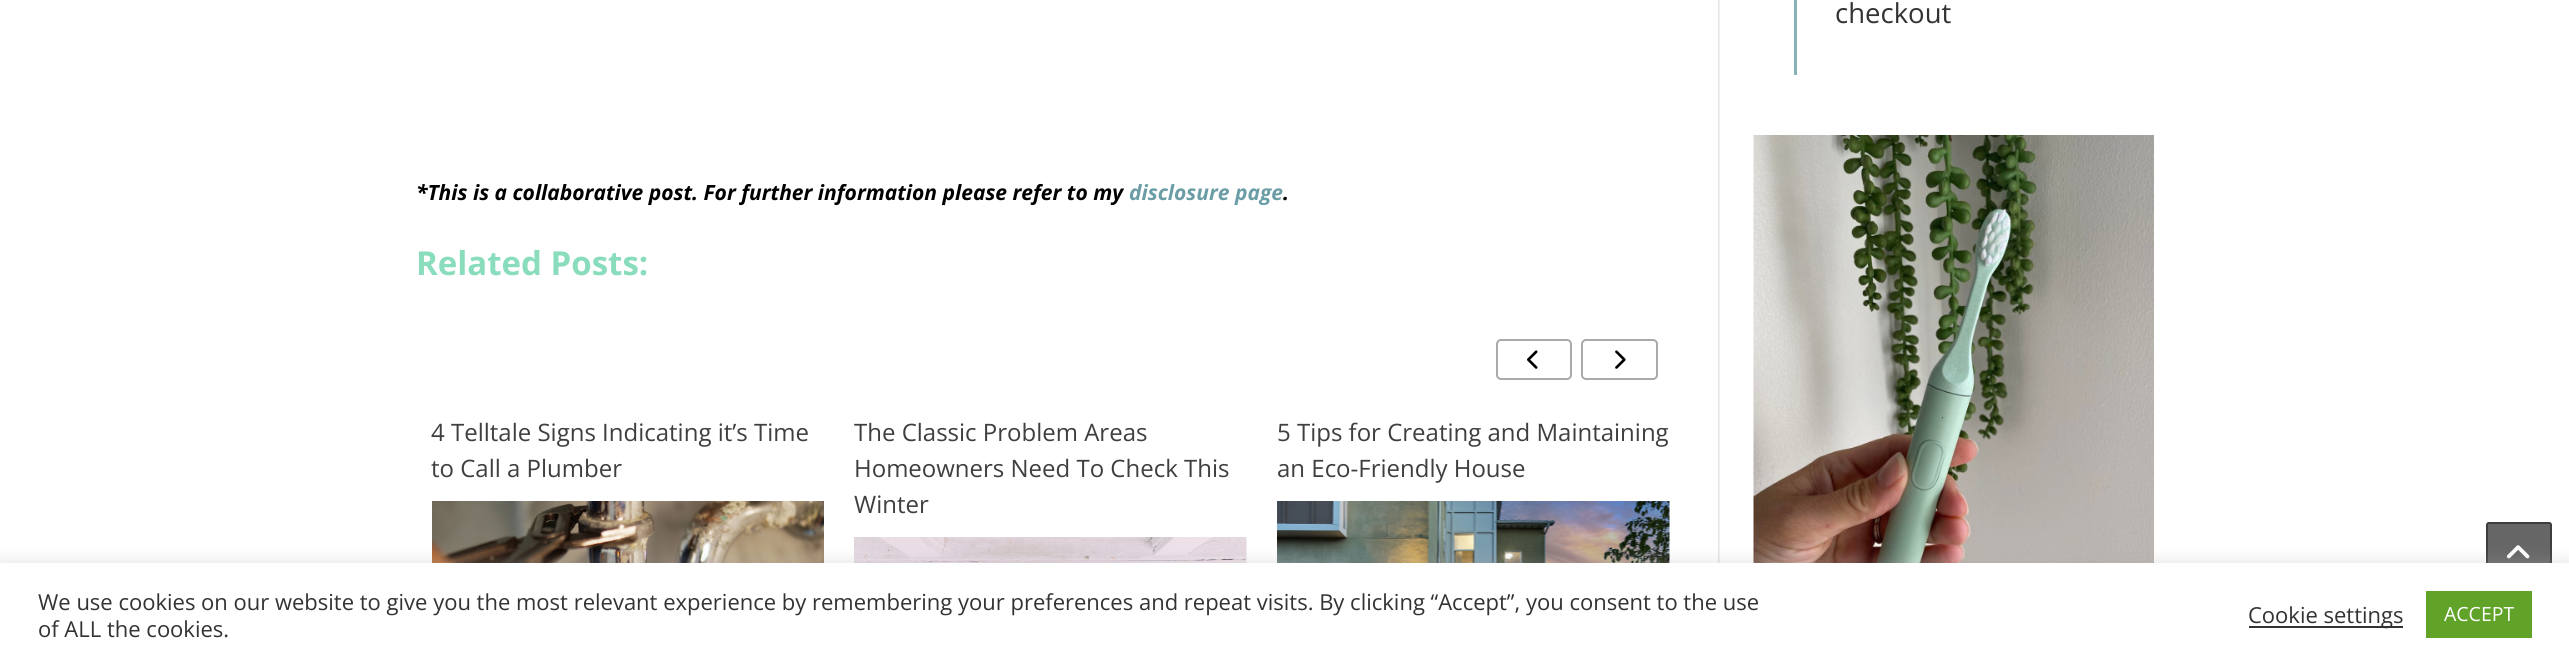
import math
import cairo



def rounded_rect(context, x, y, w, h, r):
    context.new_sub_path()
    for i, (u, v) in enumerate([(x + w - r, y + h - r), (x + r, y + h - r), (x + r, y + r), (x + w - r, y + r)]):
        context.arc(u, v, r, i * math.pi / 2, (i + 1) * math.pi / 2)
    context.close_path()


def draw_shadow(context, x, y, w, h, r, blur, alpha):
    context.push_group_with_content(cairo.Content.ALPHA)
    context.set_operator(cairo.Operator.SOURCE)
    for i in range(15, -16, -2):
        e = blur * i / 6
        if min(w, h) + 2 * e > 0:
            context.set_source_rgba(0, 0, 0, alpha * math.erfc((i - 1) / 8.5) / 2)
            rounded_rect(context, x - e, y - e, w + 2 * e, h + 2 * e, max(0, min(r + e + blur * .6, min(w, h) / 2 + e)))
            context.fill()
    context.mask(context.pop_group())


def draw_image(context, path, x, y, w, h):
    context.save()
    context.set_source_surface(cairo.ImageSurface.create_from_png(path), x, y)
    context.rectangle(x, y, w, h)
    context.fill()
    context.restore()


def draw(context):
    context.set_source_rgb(1, 1, 1)
    context.paint()
    context.set_source_rgb(240 / 255, 240 / 255, 240 / 255)
    context.rectangle(1719, 0, 1, 563)
    context.fill()
    context.set_source_rgb(230 / 255, 230 / 255, 230 / 255)
    context.new_path()
    context.move_to(1718, -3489)
    context.line_to(1718, 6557)
    context.line_to(2153, 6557)
    context.line_to(2153, 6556)
    context.line_to(1719, 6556)
    context.line_to(1719, -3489)
    context.close_path()
    context.fill()
    context.set_source_rgb(136 / 255, 177 / 255, 183 / 255)
    context.rectangle(1794, 0, 3, 75)
    context.fill()
    draw_image(context, "images/1.png", 1753, 135, 401, 428)
    rounded_rect(context, 1497, 340, 74, 39, 4)
    context.set_source_rgb(171 / 255, 170 / 255, 170 / 255)
    context.stroke()
    draw_image(context, "images/2.png", 1527, 350, 11, 19)
    rounded_rect(context, 1582, 340, 75, 39, 4)
    context.stroke()
    draw_image(context, "images/3.png", 1615, 350, 11, 19)
    draw_image(context, "images/4.png", 432, 501, 392, 62)
    draw_image(context, "images/5.png", 854, 537, 393, 26)
    draw_image(context, "images/6.png", 1277, 501, 393, 62)
    context.set_source_rgb(102 / 255, 102 / 255, 102 / 255)
    rounded_rect(context, 2486, 522, 66, 66, 3)
    context.fill()
    rounded_rect(context, 2487, 523, 64, 64, 2)
    context.set_source_rgba(0, 0, 0, 0.4)
    context.stroke()
    draw_image(context, "images/7.png", 2506, 545, 24, 14)
    context.set_source_rgb(172 / 255, 171 / 255, 171 / 255)
    draw_shadow(context, 0, 561, 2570, 104, 0, 7.5, 0.3)
    context.set_source_rgb(1, 1, 1)
    context.rectangle(0, 563, 2569, 102)
    context.fill()
    context.set_source_rgb(51 / 255, 51 / 255, 51 / 255)
    context.rectangle(2249, 626, 154, 2)
    context.fill()
    context.set_source_rgb(97 / 255, 162 / 255, 41 / 255)
    context.rectangle(2426, 591, 106, 47)
    context.fill()
    context.select_font_face("Open Sans")
    context.set_font_size(27.5)
    context.set_source_rgb(51 / 255, 51 / 255, 51 / 255)
    context.move_to(1835, 23)
    context.show_text("checkout")
    context.select_font_face("Open Sans", cairo.FontSlant.ITALIC, cairo.FontWeight.BOLD)
    context.set_font_size(21)
    context.set_source_rgb(0, 0, 0)
    context.move_to(416, 200)
    context.show_text("*This is a collaborative post. For further information please refer to my")
    context.set_source_rgb(106 / 255, 157 / 255, 165 / 255)
    context.move_to(1129, 200)
    context.show_text("disclosure page")
    context.set_source_rgb(0, 0, 0)
    context.move_to(1283, 200)
    context.show_text(".")
    context.select_font_face("Open Sans", cairo.FontSlant.NORMAL, cairo.FontWeight.BOLD)
    context.set_font_size(33)
    context.set_source_rgb(137 / 255, 221 / 255, 188 / 255)
    context.move_to(416, 275)
    context.show_text("Related Posts:")
    context.select_font_face("Open Sans")
    context.set_font_size(24)
    context.set_source_rgb(63 / 255, 63 / 255, 63 / 255)
    context.move_to(431, 441)
    context.show_text("4 Telltale Signs Indicating it’s Time")
    context.move_to(431, 477)
    context.show_text("to Call a Plumber")
    context.move_to(854, 441)
    context.show_text("The Classic Problem Areas")
    context.move_to(854, 477)
    context.show_text("Homeowners Need To Check This")
    context.move_to(854, 513)
    context.show_text("Winter")
    context.move_to(1277, 441)
    context.show_text("5 Tips for Creating and Maintaining")
    context.move_to(1277, 477)
    context.show_text("an Eco-Friendly House")
    context.set_font_size(22)
    context.set_source_rgb(51 / 255, 51 / 255, 51 / 255)
    context.move_to(38, 610)
    context.show_text("We use cookies on our website to give you the most relevant experience by remembering your preferences and repeat visits. By clicking “Accept”, you consent to the use")
    context.move_to(38, 637)
    context.show_text("of ALL the cookies.")
    context.move_to(2248, 623)
    context.show_text("Cookie settings")
    context.set_font_size(19.5)
    context.set_source_rgb(1, 1, 1)
    context.move_to(2444, 621)
    context.show_text("ACCEPT")


surface = cairo.ImageSurface(cairo.Format.RGB24, 2569, 665)
context = cairo.Context(surface)
options = cairo.FontOptions()
options.set_hint_metrics(cairo.HintMetrics.OFF)
options.set_hint_style(cairo.HintStyle.NONE)
context.set_font_options(options)
context.set_miter_limit(4)
draw(context)
surface.write_to_png("out.png")
